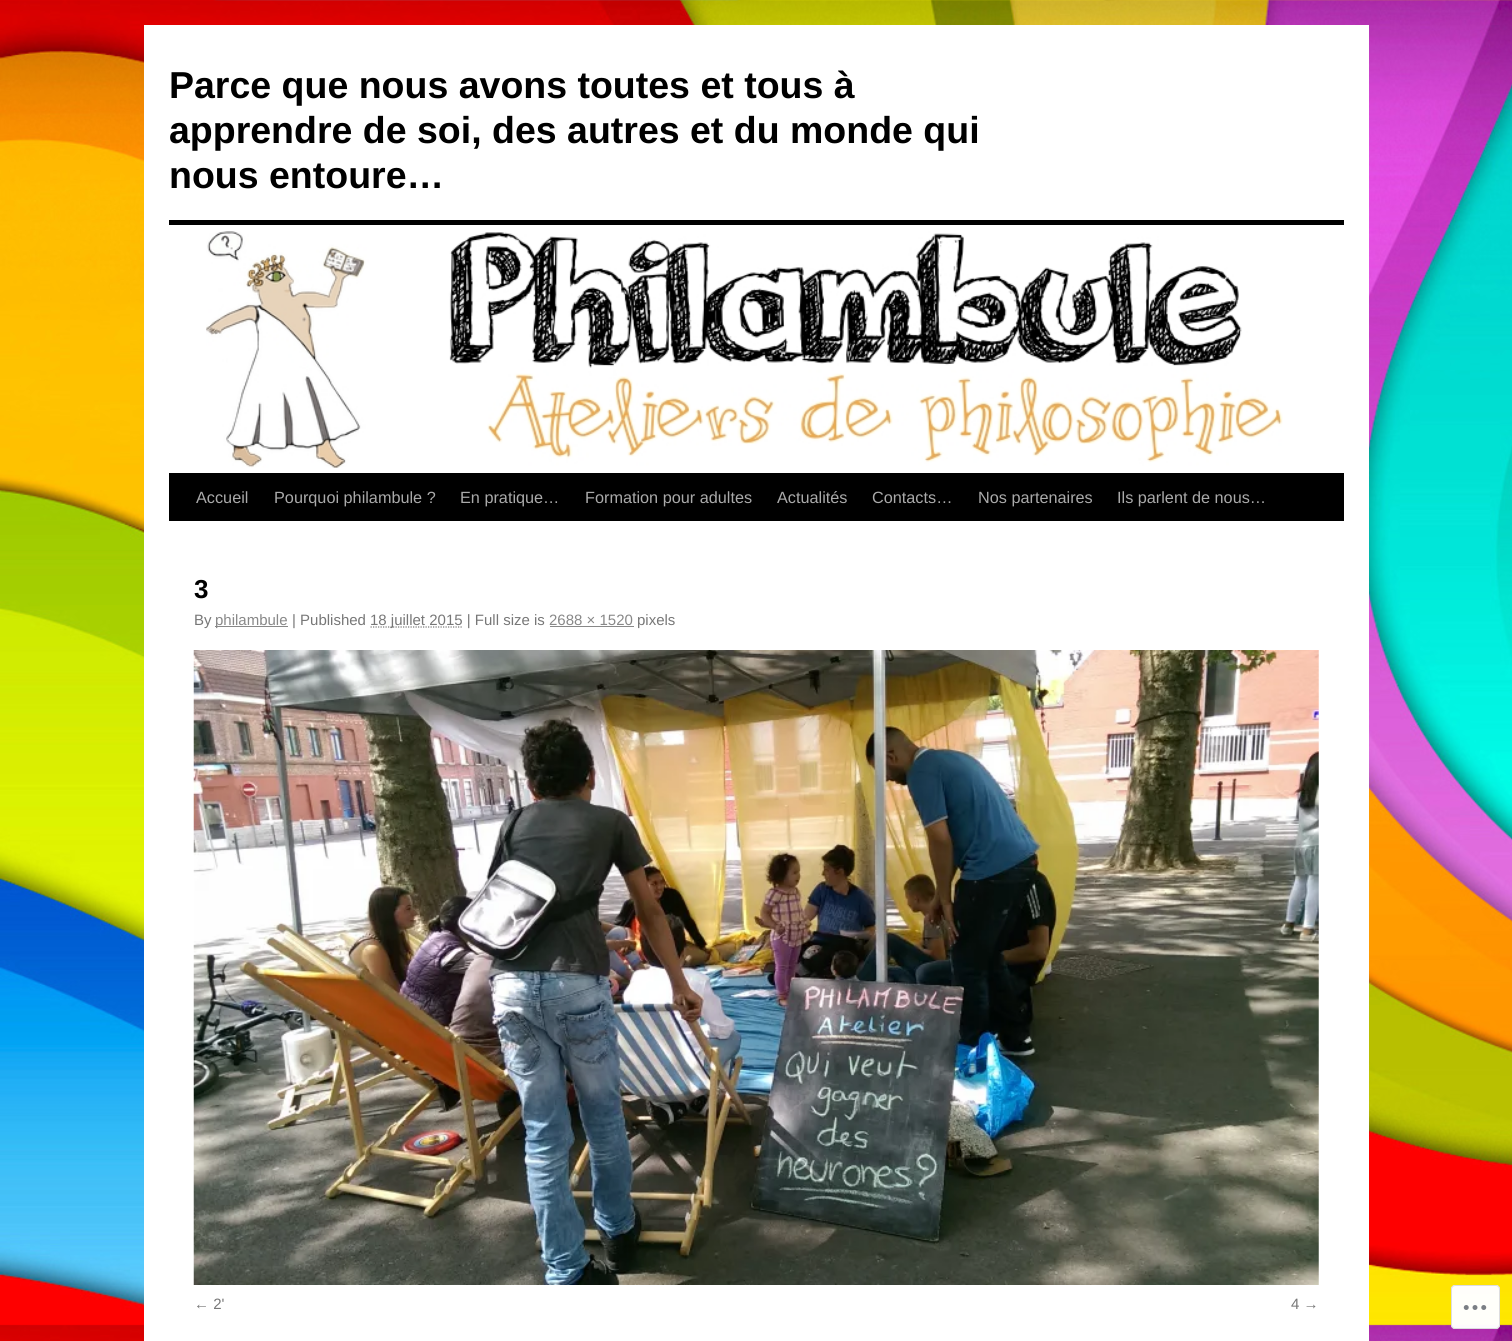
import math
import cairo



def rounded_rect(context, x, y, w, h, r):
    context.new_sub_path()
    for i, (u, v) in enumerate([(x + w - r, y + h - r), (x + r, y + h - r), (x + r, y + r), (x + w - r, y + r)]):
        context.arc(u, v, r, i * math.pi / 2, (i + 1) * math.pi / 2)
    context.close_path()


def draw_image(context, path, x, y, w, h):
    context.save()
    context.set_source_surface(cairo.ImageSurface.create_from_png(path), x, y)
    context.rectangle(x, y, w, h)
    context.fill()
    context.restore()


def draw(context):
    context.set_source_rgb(1, 1, 1)
    context.paint()
    draw_image(context, "images/1.png", 0, 0, 1512, 1341)
    context.set_source_rgb(1, 1, 1)
    context.rectangle(144, 25, 1225, 1316)
    context.fill()
    context.set_source_rgb(0, 0, 0)
    context.rectangle(169, 220, 1175, 5)
    context.fill()
    context.rectangle(169, 473, 1175, 48)
    context.fill()
    draw_image(context, "images/2.png", 206, 231, 1077, 237)
    context.set_source_rgb(136 / 255, 136 / 255, 136 / 255)
    context.rectangle(215, 626, 73, 1)
    context.fill()
    context.new_path()
    context.move_to(370.5, 627)
    context.line_to(463, 627)
    context.set_source_rgb(119 / 255, 119 / 255, 119 / 255)
    context.set_line_width(1.2)
    context.set_dash([1.25, 1.25])
    context.stroke()
    context.set_source_rgb(136 / 255, 136 / 255, 136 / 255)
    context.rectangle(550, 626, 84, 1)
    context.fill()
    draw_image(context, "images/3.png", 193, 650, 1126, 635)
    context.set_source_rgba(1, 1, 1, 0.98)
    rounded_rect(context, 1451, 1285, 49, 44, 4)
    context.fill()
    rounded_rect(context, 1451.5, 1285.5, 48, 43, 3.5)
    context.set_source_rgba(220 / 255, 220 / 255, 222 / 255, 0.98)
    context.set_line_width(1)
    context.set_dash([])
    context.stroke()
    draw_image(context, "images/4.png", 1463, 1305, 24, 5)
    context.select_font_face("Liberation Sans", cairo.FontSlant.NORMAL, cairo.FontWeight.BOLD)
    context.set_font_size(37.5)
    context.set_source_rgb(0, 0, 0)
    context.move_to(169, 98)
    context.show_text("Parce que nous avons toutes et tous à")
    context.move_to(169, 143)
    context.show_text("apprendre de soi, des autres et du monde qui")
    context.move_to(169, 188)
    context.show_text("nous entoure…")
    context.select_font_face("Liberation Sans")
    context.set_font_size(16.25)
    context.set_source_rgb(170 / 255, 170 / 255, 170 / 255)
    context.move_to(196, 503)
    context.show_text("Accueil")
    context.move_to(274, 503)
    context.show_text("Pourquoi philambule ?")
    context.move_to(460, 503)
    context.show_text("En pratique…")
    context.move_to(585, 503)
    context.show_text("Formation pour adultes")
    context.move_to(777, 503)
    context.show_text("Actualités")
    context.move_to(872, 503)
    context.show_text("Contacts…")
    context.move_to(978, 503)
    context.show_text("Nos partenaires")
    context.move_to(1117, 503)
    context.show_text("Ils parlent de nous…")
    context.select_font_face("Liberation Sans", cairo.FontSlant.NORMAL, cairo.FontWeight.BOLD)
    context.set_font_size(26)
    context.set_source_rgb(0, 0, 0)
    context.move_to(194, 598)
    context.show_text("3")
    context.select_font_face("Liberation Sans")
    context.set_font_size(15)
    context.set_source_rgb(119 / 255, 119 / 255, 119 / 255)
    context.move_to(194, 625)
    context.show_text("By")
    context.set_source_rgb(136 / 255, 136 / 255, 136 / 255)
    context.move_to(215, 625)
    context.show_text("philambule")
    context.set_source_rgb(119 / 255, 119 / 255, 119 / 255)
    context.move_to(292, 625)
    context.show_text("| Published")
    context.move_to(370, 625)
    context.show_text("18 juillet 2015 | Full size is")
    context.set_source_rgb(136 / 255, 136 / 255, 136 / 255)
    context.move_to(549, 625)
    context.show_text("2688 × 1520")
    context.set_source_rgb(119 / 255, 119 / 255, 119 / 255)
    context.move_to(637, 625)
    context.show_text("pixels")
    context.move_to(194, 1309)
    context.show_text("← 2'")
    context.move_to(1291, 1309)
    context.show_text("4 →")


surface = cairo.ImageSurface(cairo.Format.RGB24, 1512, 1341)
context = cairo.Context(surface)
options = cairo.FontOptions()
options.set_hint_metrics(cairo.HintMetrics.OFF)
options.set_hint_style(cairo.HintStyle.NONE)
context.set_font_options(options)
context.set_miter_limit(4)
draw(context)
surface.write_to_png("out.png")
